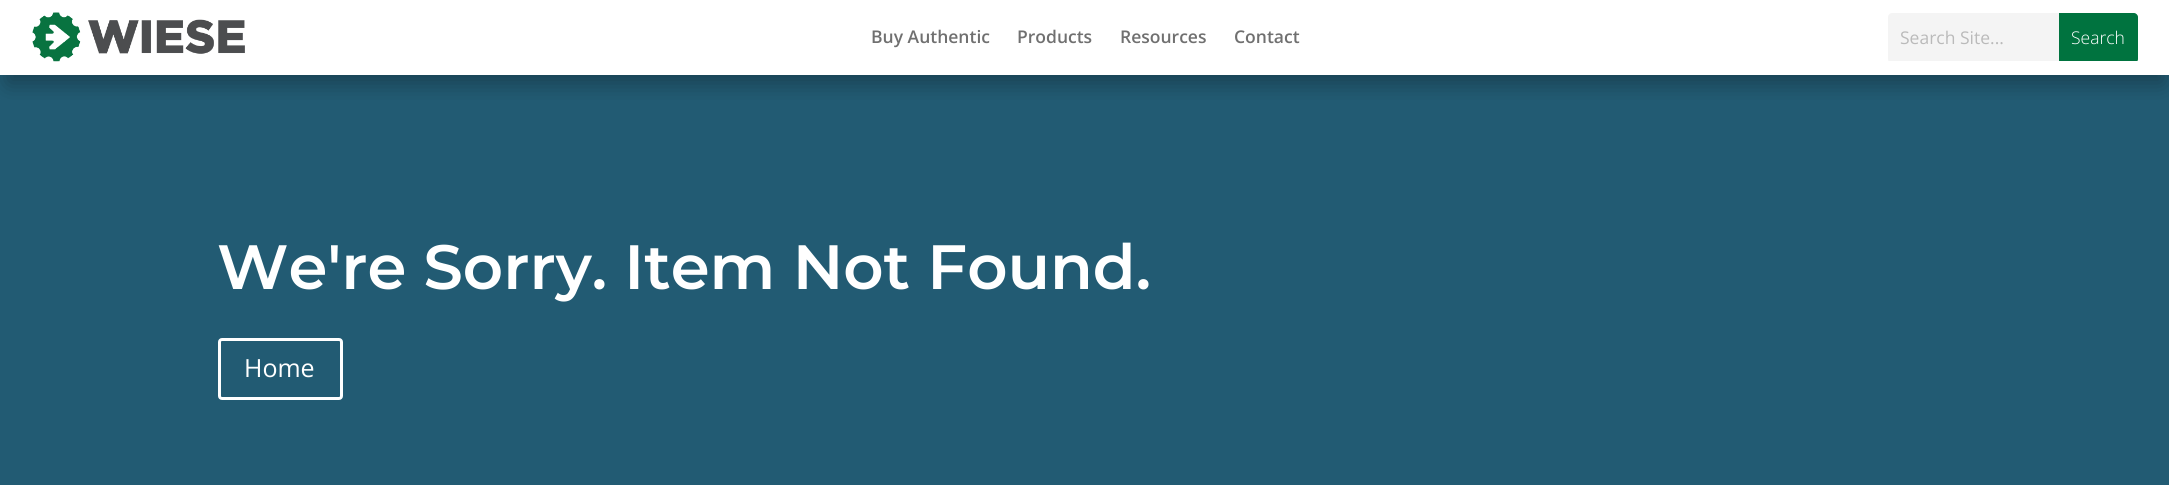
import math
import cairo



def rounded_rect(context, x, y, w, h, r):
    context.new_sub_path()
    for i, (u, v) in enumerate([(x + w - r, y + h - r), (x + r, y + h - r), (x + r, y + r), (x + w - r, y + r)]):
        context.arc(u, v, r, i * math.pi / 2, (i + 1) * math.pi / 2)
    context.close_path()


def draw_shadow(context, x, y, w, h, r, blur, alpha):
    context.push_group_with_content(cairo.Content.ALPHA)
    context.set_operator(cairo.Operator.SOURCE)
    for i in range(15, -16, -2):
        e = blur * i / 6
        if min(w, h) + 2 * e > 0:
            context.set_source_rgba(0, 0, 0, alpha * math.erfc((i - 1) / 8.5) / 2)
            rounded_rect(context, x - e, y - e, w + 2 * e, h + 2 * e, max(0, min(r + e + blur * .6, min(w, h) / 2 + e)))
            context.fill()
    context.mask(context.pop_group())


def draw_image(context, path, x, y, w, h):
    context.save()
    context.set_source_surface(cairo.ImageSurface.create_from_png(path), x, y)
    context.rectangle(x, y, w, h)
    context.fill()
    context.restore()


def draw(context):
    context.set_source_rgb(1, 1, 1)
    context.paint()
    context.set_source_rgb(34 / 255, 91 / 255, 115 / 255)
    context.rectangle(0, 75, 2169, 410)
    context.fill()
    context.save()
    context.rectangle(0, 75, 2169, 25)
    context.clip()
    context.set_source_rgb(0, 0, 0)
    draw_shadow(context, 8, 23, 2155, 60, 0, 11, 0.3)
    context.restore()
    draw_image(context, "images/1.png", 32, 12, 213, 50)
    context.save()
    rounded_rect(context, 1888, 13, 250, 50, 4)
    context.clip()
    context.set_source_rgb(244 / 255, 244 / 255, 244 / 255)
    context.new_path()
    context.move_to(1892, 13)
    context.line_to(2059, 13)
    context.line_to(2059, 61)
    context.line_to(1888, 61)
    context.line_to(1888, 17)
    context.curve_to(1888, 15, 1890, 13, 1892, 13)
    context.close_path()
    context.fill()
    context.set_source_rgb(0, 115 / 255, 63 / 255)
    context.new_path()
    context.move_to(2059, 13)
    context.line_to(2134, 13)
    context.curve_to(2136, 13, 2138, 15, 2138, 17)
    context.line_to(2138, 61)
    context.line_to(2059, 61)
    context.close_path()
    context.fill()
    context.restore()
    rounded_rect(context, 219.5, 339.5, 122, 59, 2.5)
    context.set_source_rgb(1, 1, 1)
    context.set_line_width(3)
    context.stroke()
    context.select_font_face("Open Sans SemiBold")
    context.set_font_size(17.5)
    context.set_source_rgb(112 / 255, 112 / 255, 112 / 255)
    context.move_to(871, 43)
    context.show_text("Buy Authentic")
    context.move_to(1017, 43)
    context.show_text("Products")
    context.move_to(1120, 43)
    context.show_text("Resources")
    context.move_to(1234, 43)
    context.show_text("Contact")
    context.select_font_face("Open Sans")
    context.set_source_rgb(186 / 255, 186 / 255, 186 / 255)
    context.move_to(1900, 44)
    context.show_text("Search Site...")
    context.select_font_face("Open Sans Light")
    context.set_source_rgb(1, 1, 1)
    context.move_to(2071, 44)
    context.show_text("Search")
    context.select_font_face("Montserrat SemiBold")
    context.set_font_size(62.5)
    context.move_to(217, 289)
    context.show_text("We're Sorry. Item Not Found.")
    context.select_font_face("Open Sans")
    context.set_font_size(25)
    context.move_to(244, 377)
    context.show_text("Home")


surface = cairo.ImageSurface(cairo.Format.RGB24, 2169, 485)
context = cairo.Context(surface)
options = cairo.FontOptions()
options.set_hint_metrics(cairo.HintMetrics.OFF)
options.set_hint_style(cairo.HintStyle.NONE)
context.set_font_options(options)
context.set_miter_limit(4)
draw(context)
surface.write_to_png("out.png")
